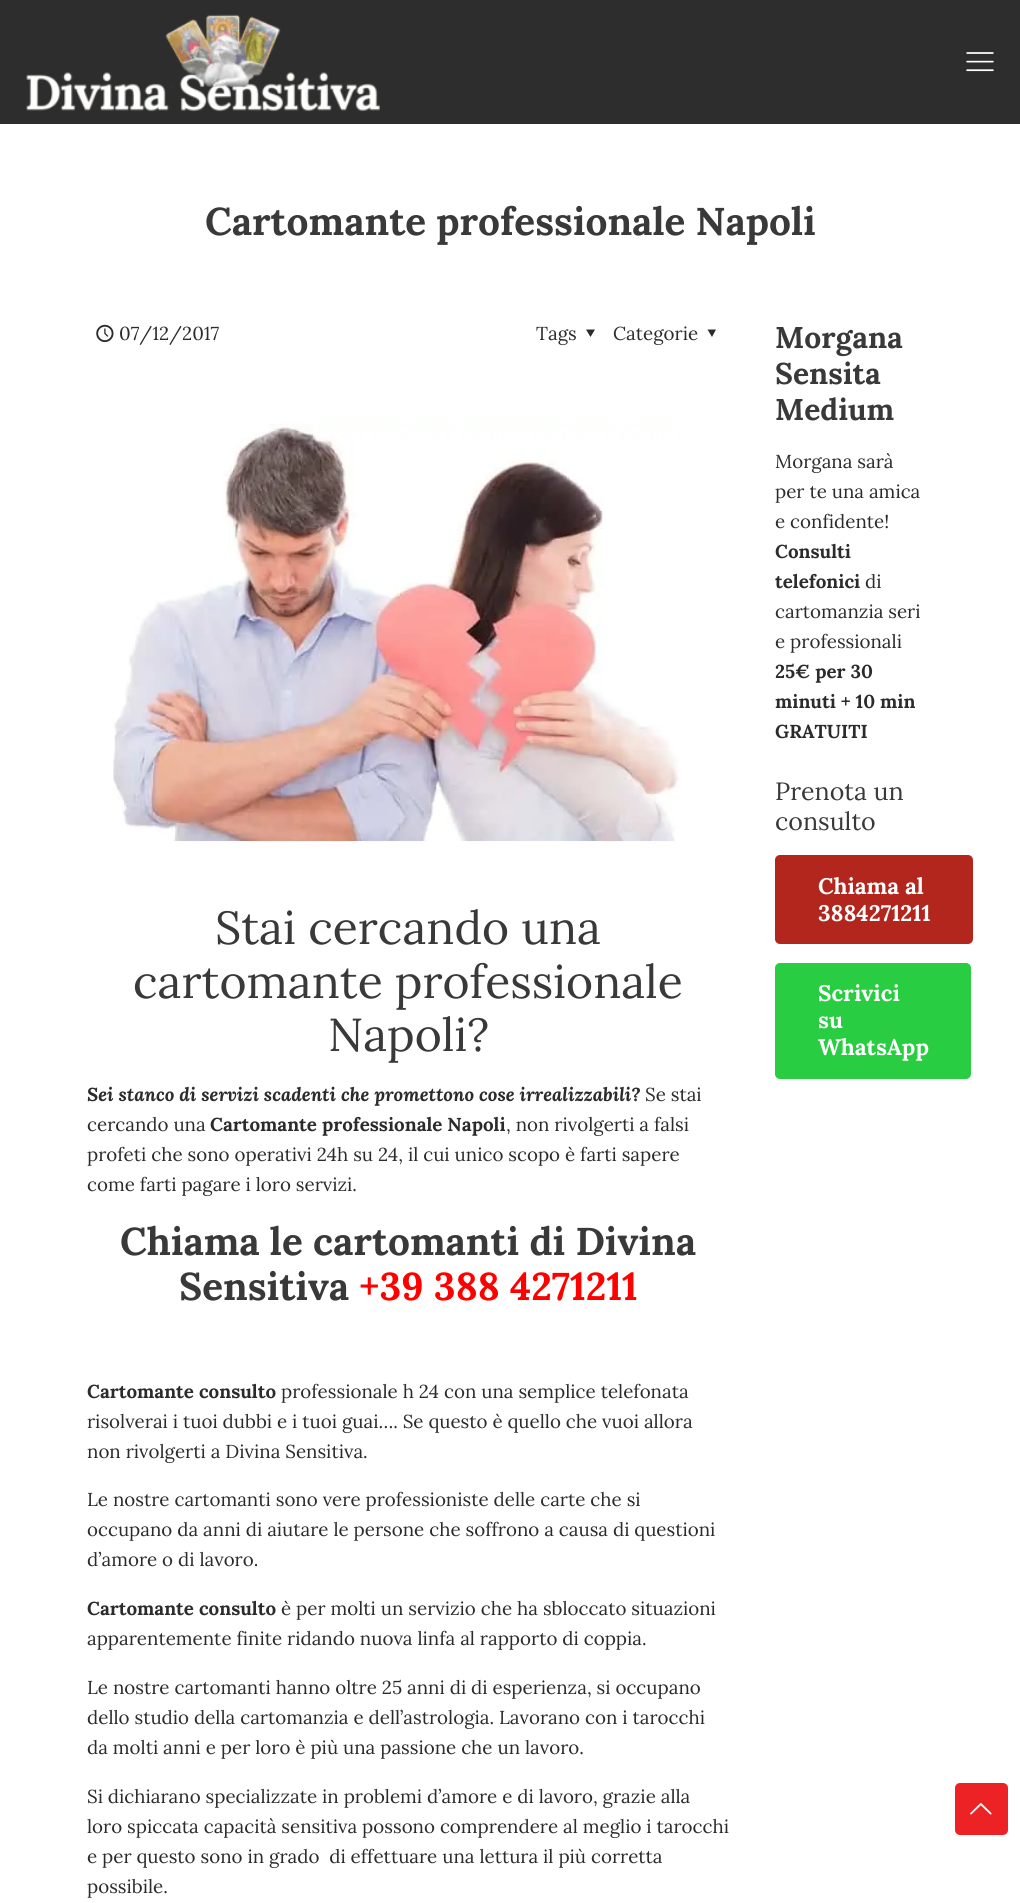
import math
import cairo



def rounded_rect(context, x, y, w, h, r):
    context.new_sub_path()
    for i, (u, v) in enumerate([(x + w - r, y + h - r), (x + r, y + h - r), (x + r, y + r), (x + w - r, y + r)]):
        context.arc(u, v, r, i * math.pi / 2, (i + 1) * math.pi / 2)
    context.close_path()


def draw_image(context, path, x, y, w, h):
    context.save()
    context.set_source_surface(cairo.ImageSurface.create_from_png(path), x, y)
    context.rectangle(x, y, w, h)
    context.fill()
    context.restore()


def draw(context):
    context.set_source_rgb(1, 1, 1)
    context.paint()
    context.set_source_rgb(45 / 255, 45 / 255, 45 / 255)
    context.rectangle(0, 0, 1020, 124)
    context.fill()
    draw_image(context, "images/1.png", 26, 14, 354, 98)
    draw_image(context, "images/2.png", 966, 52, 28, 20)
    draw_image(context, "images/3.png", 96, 324, 18, 19)
    context.set_source_rgb(43 / 255, 43 / 255, 43 / 255)
    context.new_path()
    context.move_to(595, 329.5)
    context.line_to(590.5, 337)
    context.line_to(586, 329.5)
    context.close_path()
    context.fill()
    context.new_path()
    context.move_to(716, 329.5)
    context.line_to(712, 337)
    context.line_to(707.5, 329.5)
    context.close_path()
    context.fill()
    draw_image(context, "images/4.png", 113, 424, 567, 418)
    context.set_source_rgb(179 / 255, 38 / 255, 30 / 255)
    rounded_rect(context, 775, 855, 198, 89, 5)
    context.fill()
    context.set_source_rgb(40 / 255, 205 / 255, 65 / 255)
    rounded_rect(context, 775, 963, 196, 116, 5)
    context.fill()
    context.set_source_rgb(237 / 255, 34 / 255, 36 / 255)
    rounded_rect(context, 955, 1783, 53, 52, 5)
    context.fill()
    draw_image(context, "images/5.png", 970, 1803, 22, 12)
    context.select_font_face("Lora", cairo.FontSlant.NORMAL, cairo.FontWeight.BOLD)
    context.set_font_size(38.75)
    context.set_source_rgb(57 / 255, 57 / 255, 57 / 255)
    context.move_to(205, 235)
    context.show_text("Cartomante professionale Napoli")
    context.select_font_face("Lora")
    context.set_font_size(18.75)
    context.set_source_rgb(43 / 255, 43 / 255, 43 / 255)
    context.move_to(119, 340)
    context.show_text("07/12/2017")
    context.move_to(536, 340)
    context.show_text("Tags")
    context.move_to(613, 340)
    context.show_text("Categorie")
    context.set_font_size(46.25)
    context.set_source_rgb(57 / 255, 57 / 255, 57 / 255)
    context.move_to(215, 944)
    context.show_text("Stai cercando una")
    context.move_to(133, 998)
    context.show_text("cartomante professionale")
    context.move_to(328, 1051)
    context.show_text("Napoli?")
    context.select_font_face("Lora", cairo.FontSlant.ITALIC, cairo.FontWeight.BOLD)
    context.set_font_size(18.75)
    context.set_source_rgb(43 / 255, 43 / 255, 43 / 255)
    context.move_to(87, 1101)
    context.show_text("Sei stanco di servizi scadenti che promettono cose irrealizzabili?")
    context.select_font_face("Lora")
    context.move_to(645, 1101)
    context.show_text("Se stai")
    context.move_to(87, 1131)
    context.show_text("cercando una")
    context.select_font_face("Lora", cairo.FontSlant.NORMAL, cairo.FontWeight.BOLD)
    context.move_to(210, 1131)
    context.show_text("Cartomante professionale Napoli")
    context.select_font_face("Lora")
    context.move_to(506, 1131)
    context.show_text(", non rivolgerti a falsi")
    context.move_to(87, 1161)
    context.show_text("profeti che sono operativi 24h su 24, il cui unico scopo è farti sapere")
    context.move_to(87, 1191)
    context.show_text("come farti pagare i loro servizi.")
    context.select_font_face("Lora", cairo.FontSlant.NORMAL, cairo.FontWeight.BOLD)
    context.set_font_size(38.75)
    context.set_source_rgb(57 / 255, 57 / 255, 57 / 255)
    context.move_to(120, 1255)
    context.show_text("Chiama le cartomanti di Divina")
    context.move_to(179, 1300)
    context.show_text("Sensitiva")
    context.set_source_rgb(1, 0, 0)
    context.move_to(359, 1300)
    context.show_text("+39 388 4271211")
    context.set_font_size(18.75)
    context.set_source_rgb(43 / 255, 43 / 255, 43 / 255)
    context.move_to(87, 1398)
    context.show_text("Cartomante consulto")
    context.select_font_face("Lora")
    context.move_to(281, 1398)
    context.show_text("professionale h 24 con una semplice telefonata")
    context.move_to(87, 1428)
    context.show_text("risolverai i tuoi dubbi e i tuoi guai…. Se questo è quello che vuoi allora")
    context.move_to(87, 1458)
    context.show_text("non rivolgerti a Divina Sensitiva.")
    context.move_to(87, 1506)
    context.show_text("Le nostre cartomanti sono vere professioniste delle carte che si")
    context.move_to(87, 1536)
    context.show_text("occupano da anni di aiutare le persone che soffrono a causa di questioni")
    context.move_to(87, 1566)
    context.show_text("d’amore o di lavoro.")
    context.select_font_face("Lora", cairo.FontSlant.NORMAL, cairo.FontWeight.BOLD)
    context.move_to(87, 1615)
    context.show_text("Cartomante consulto")
    context.select_font_face("Lora")
    context.move_to(281, 1615)
    context.show_text("è per molti un servizio che ha sbloccato situazioni")
    context.move_to(87, 1645)
    context.show_text("apparentemente finite ridando nuova linfa al rapporto di coppia.")
    context.move_to(87, 1694)
    context.show_text("Le nostre cartomanti hanno oltre 25 anni di di esperienza, si occupano")
    context.move_to(87, 1724)
    context.show_text("dello studio della cartomanzia e dell’astrologia. Lavorano con i tarocchi")
    context.move_to(87, 1754)
    context.show_text("da molti anni e per loro è più una passione che un lavoro.")
    context.move_to(87, 1803)
    context.show_text("Si dichiarano specializzate in problemi d’amore e di lavoro, grazie alla")
    context.move_to(87, 1833)
    context.show_text("loro spiccata capacità sensitiva possono comprendere al meglio i tarocchi")
    context.move_to(87, 1863)
    context.show_text("e per questo sono in grado  di effettuare una lettura il più corretta")
    context.move_to(87, 1893)
    context.show_text("possibile.")
    context.select_font_face("Lora", cairo.FontSlant.NORMAL, cairo.FontWeight.BOLD)
    context.set_font_size(30)
    context.set_source_rgb(57 / 255, 57 / 255, 57 / 255)
    context.move_to(775, 348)
    context.show_text("Morgana")
    context.move_to(775, 384)
    context.show_text("Sensita")
    context.move_to(775, 420)
    context.show_text("Medium")
    context.select_font_face("Lora")
    context.set_font_size(18.75)
    context.set_source_rgb(43 / 255, 43 / 255, 43 / 255)
    context.move_to(775, 468)
    context.show_text("Morgana sarà")
    context.move_to(775, 498)
    context.show_text("per te una amica")
    context.move_to(775, 528)
    context.show_text("e confidente!")
    context.select_font_face("Lora", cairo.FontSlant.NORMAL, cairo.FontWeight.BOLD)
    context.move_to(775, 558)
    context.show_text("Consulti")
    context.move_to(775, 588)
    context.show_text("telefonici")
    context.select_font_face("Lora")
    context.move_to(865, 588)
    context.show_text("di")
    context.move_to(775, 618)
    context.show_text("cartomanzia seri")
    context.move_to(775, 648)
    context.show_text("e professionali")
    context.select_font_face("Lora", cairo.FontSlant.NORMAL, cairo.FontWeight.BOLD)
    context.move_to(775, 678)
    context.show_text("25€ per 30")
    context.move_to(775, 708)
    context.show_text("minuti + 10 min")
    context.move_to(775, 738)
    context.show_text("GRATUITI")
    context.select_font_face("Lora")
    context.set_font_size(25)
    context.set_source_rgb(57 / 255, 57 / 255, 57 / 255)
    context.move_to(775, 800)
    context.show_text("Prenota un")
    context.move_to(775, 830)
    context.show_text("consulto")
    context.select_font_face("Lora", cairo.FontSlant.NORMAL, cairo.FontWeight.BOLD)
    context.set_font_size(22.5)
    context.set_source_rgb(1, 1, 1)
    context.move_to(818, 894)
    context.show_text("Chiama al")
    context.move_to(818, 921)
    context.show_text("3884271211")
    context.move_to(818, 1001)
    context.show_text("Scrivici")
    context.move_to(818, 1028)
    context.show_text("su")
    context.move_to(818, 1055)
    context.show_text("WhatsApp")


surface = cairo.ImageSurface(cairo.Format.RGB24, 1020, 1903)
context = cairo.Context(surface)
options = cairo.FontOptions()
options.set_hint_metrics(cairo.HintMetrics.OFF)
options.set_hint_style(cairo.HintStyle.NONE)
context.set_font_options(options)
context.set_miter_limit(4)
draw(context)
surface.write_to_png("out.png")
